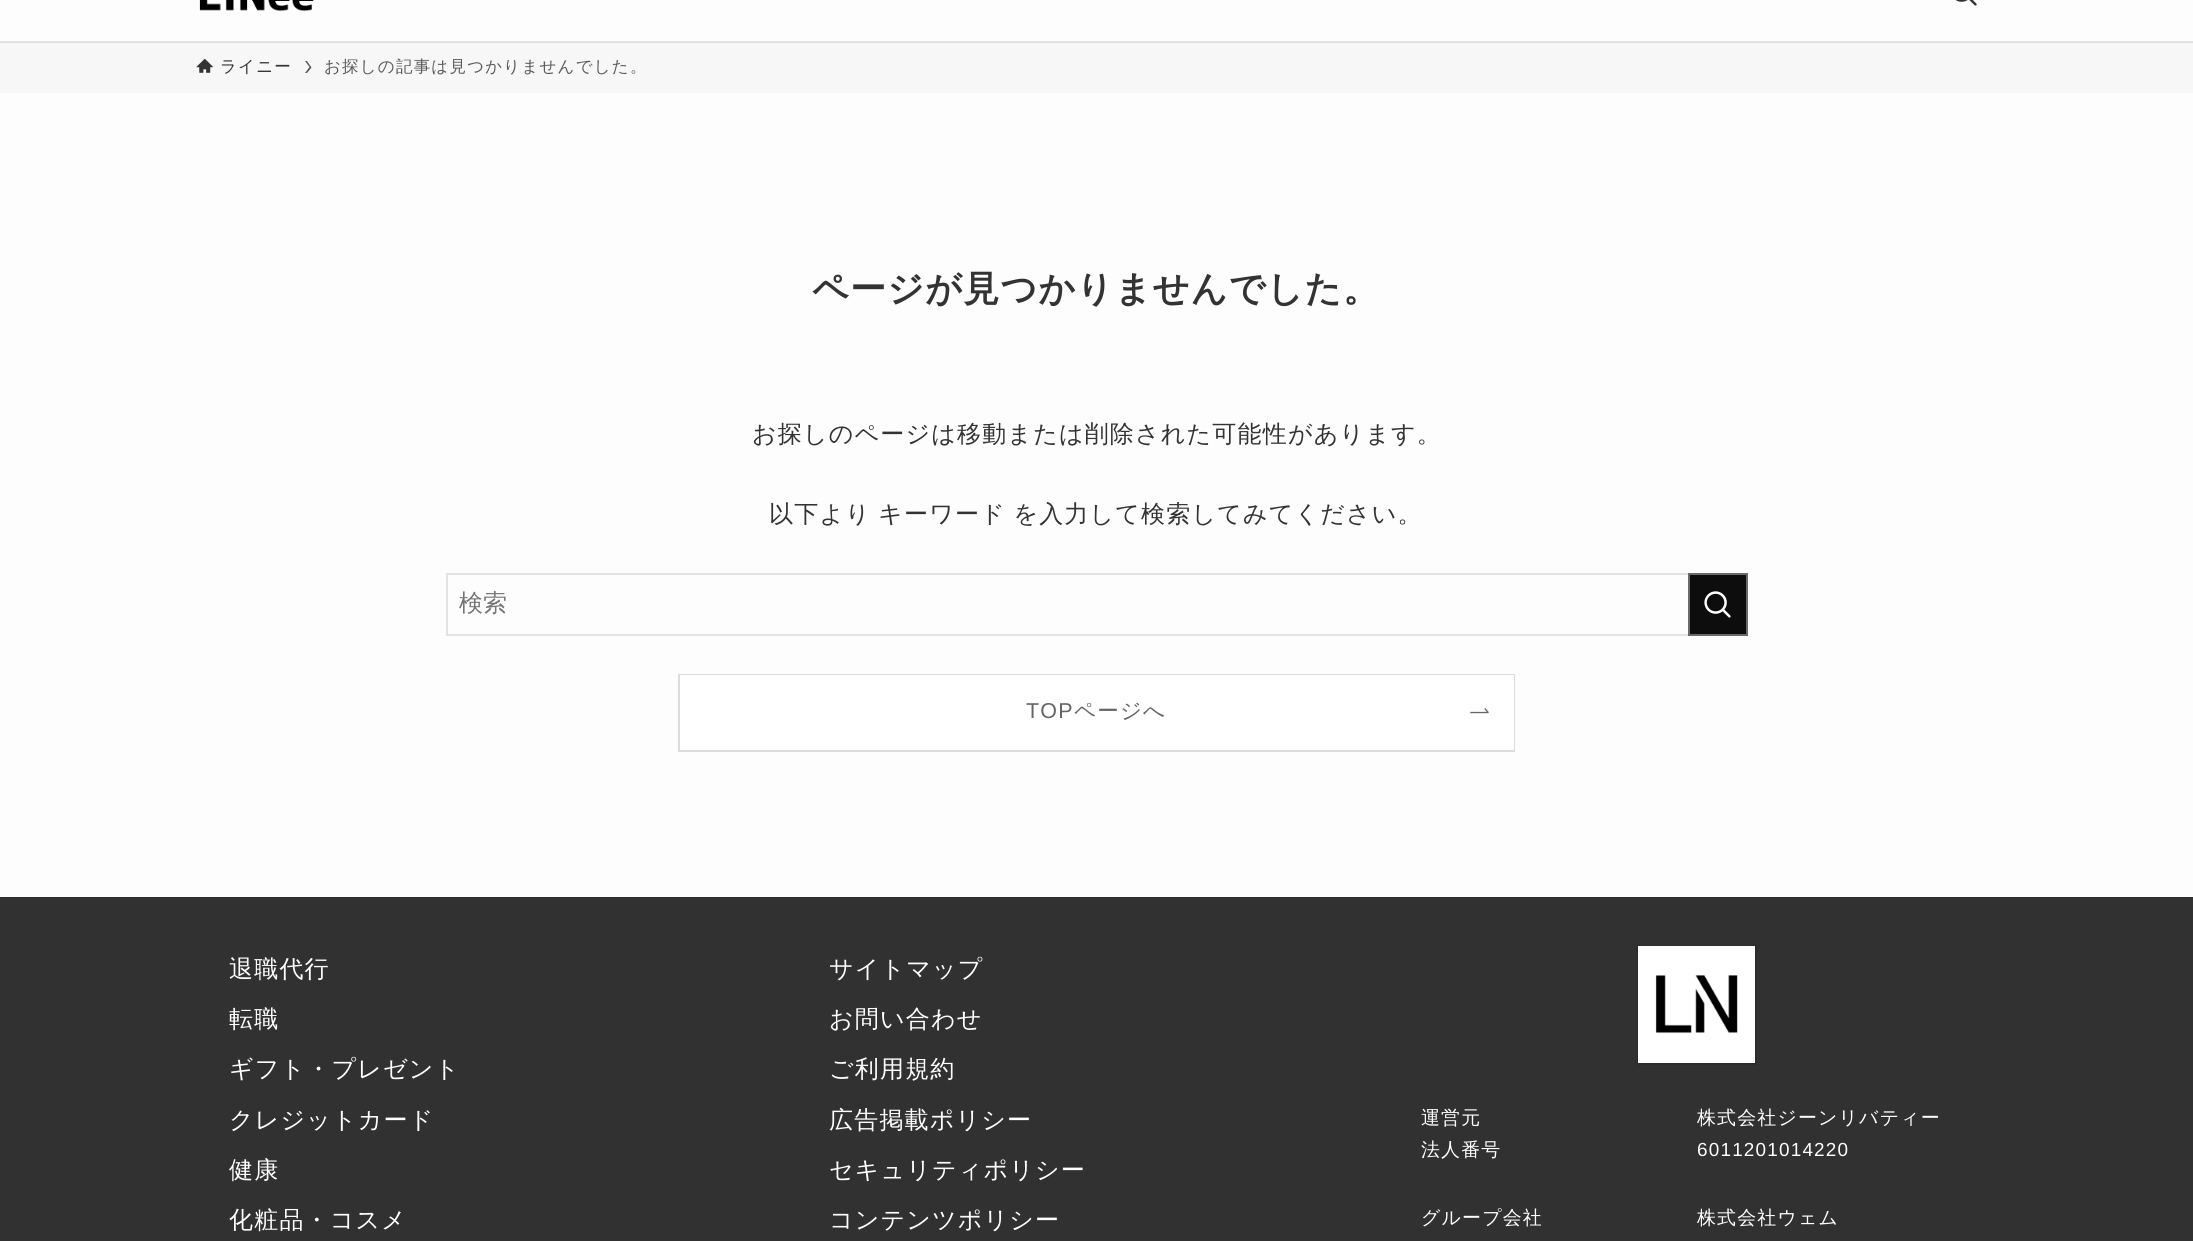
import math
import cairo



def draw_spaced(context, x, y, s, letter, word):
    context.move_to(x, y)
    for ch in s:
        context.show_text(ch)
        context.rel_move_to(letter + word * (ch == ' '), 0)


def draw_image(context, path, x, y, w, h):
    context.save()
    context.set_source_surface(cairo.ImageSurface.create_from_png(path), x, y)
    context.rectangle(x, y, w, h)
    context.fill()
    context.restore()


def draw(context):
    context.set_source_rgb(253 / 255, 253 / 255, 253 / 255)
    context.paint()
    context.set_source_rgb(228 / 255, 228 / 255, 228 / 255)
    context.rectangle(0, 41, 2193, 1)
    context.fill()
    draw_image(context, "images/1.png", 199, 0, 115, 12)
    draw_image(context, "images/2.png", 1955, 0, 22, 6)
    context.set_source_rgb(247 / 255, 247 / 255, 247 / 255)
    context.rectangle(0, 43, 2193, 50)
    context.fill()
    context.set_source_rgb(222 / 255, 222 / 255, 222 / 255)
    context.rectangle(0, 42, 2193, 1)
    context.fill()
    draw_image(context, "images/3.png", 196, 58, 17, 15)
    context.set_source_rgb(90 / 255, 90 / 255, 90 / 255)
    context.new_path()
    context.move_to(307, 61)
    context.line_to(305, 61)
    context.line_to(309.5, 67)
    context.line_to(305, 73)
    context.line_to(307, 73)
    context.line_to(311.5, 67.5)
    context.close_path()
    context.fill()
    context.rectangle(447, 574, 1300, 61)
    context.set_source_rgb(227 / 255, 227 / 255, 227 / 255)
    context.stroke()
    context.set_source_rgb(13 / 255, 13 / 255, 13 / 255)
    context.rectangle(1689, 574, 58, 61)
    context.fill_preserve()
    context.set_source_rgb(106 / 255, 106 / 255, 106 / 255)
    context.stroke()
    draw_image(context, "images/4.png", 1704, 591, 27, 27)
    context.rectangle(679, 675, 835, 76)
    context.set_source_rgb(220 / 255, 220 / 255, 220 / 255)
    context.stroke()
    context.set_source_rgb(1, 1, 1)
    context.rectangle(680, 675, 834, 75)
    context.fill()
    draw_image(context, "images/5.png", 1470, 708, 19, 6)
    context.set_source_rgb(49 / 255, 49 / 255, 49 / 255)
    context.rectangle(0, 897, 2193, 344)
    context.fill()
    context.rectangle(1638, 946, 118, 118)
    context.set_source_rgb(44 / 255, 44 / 255, 44 / 255)
    context.stroke()
    draw_image(context, "images/6.png", 1638, 946, 117, 117)
    context.select_font_face("WenQuanYi Zen Hei Medium")
    context.set_font_size(16.5)
    context.set_source_rgb(51 / 255, 51 / 255, 51 / 255)
    draw_spaced(context, 220, 72, "ライニー", 1.2, 0)
    context.set_source_rgb(90 / 255, 90 / 255, 90 / 255)
    draw_spaced(context, 324, 72, "お探しの記事は見つかりませんでした。", 1.2, 0)
    context.select_font_face("WenQuanYi Zen Hei", cairo.FontSlant.NORMAL, cairo.FontWeight.BOLD)
    context.set_font_size(36)
    context.set_source_rgb(51 / 255, 51 / 255, 51 / 255)
    draw_spaced(context, 812, 301, "ページが見つかりませんでした。", 1.2, 0)
    context.select_font_face("WenQuanYi Zen Hei Medium")
    context.set_font_size(24)
    draw_spaced(context, 752, 442, "お探しのページは移動または削除された可能性があります。", 1.2, 0)
    draw_spaced(context, 769, 522, "以下より キーワード を入力して検索してみてください。", 1.2, -1)
    context.set_source_rgb(117 / 255, 117 / 255, 117 / 255)
    context.move_to(459, 611)
    context.show_text("検索")
    context.select_font_face("Liberation Sans")
    context.set_font_size(21.5)
    context.set_source_rgb(102 / 255, 102 / 255, 102 / 255)
    draw_spaced(context, 1026, 718, "TOP", 1.2, 0)
    context.select_font_face("WenQuanYi Zen Hei Medium")
    draw_spaced(context, 1074, 718, "ページへ", 1.2, 0)
    context.set_font_size(24)
    context.set_source_rgb(1, 1, 1)
    draw_spaced(context, 229, 977, "退職代行", 1.2, 0)
    draw_spaced(context, 229, 1027, "転職", 1.2, 0)
    draw_spaced(context, 229, 1077, "ギフト・プレゼント", 1.2, 0)
    draw_spaced(context, 229, 1128, "クレジットカード", 1.2, 0)
    draw_spaced(context, 229, 1178, "健康", 1.2, 0)
    draw_spaced(context, 229, 1228, "化粧品・コスメ", 1.2, 0)
    draw_spaced(context, 829, 977, "サイトマップ", 1.2, 0)
    draw_spaced(context, 829, 1027, "お問い合わせ", 1.2, 0)
    draw_spaced(context, 829, 1077, "ご利用規約", 1.2, 0)
    draw_spaced(context, 829, 1128, "広告掲載ポリシー", 1.2, 0)
    draw_spaced(context, 829, 1178, "セキュリティポリシー", 1.2, 0)
    draw_spaced(context, 829, 1228, "コンテンツポリシー", 1.2, 0)
    context.set_font_size(18.9)
    draw_spaced(context, 1421, 1124, "運営元", 1.2, 0)
    draw_spaced(context, 1697, 1124, "株式会社ジーンリバティー", 1.2, 0)
    draw_spaced(context, 1421, 1156, "法人番号", 1.2, 0)
    context.select_font_face("Liberation Sans")
    draw_spaced(context, 1697, 1156, "6011201014220", 1.2, 0)
    context.select_font_face("WenQuanYi Zen Hei Medium")
    draw_spaced(context, 1421, 1224, "グループ会社", 1.2, 0)
    draw_spaced(context, 1697, 1224, "株式会社ウェム", 1.2, 0)


surface = cairo.ImageSurface(cairo.Format.RGB24, 2193, 1241)
context = cairo.Context(surface)
options = cairo.FontOptions()
options.set_hint_metrics(cairo.HintMetrics.OFF)
options.set_hint_style(cairo.HintStyle.NONE)
context.set_font_options(options)
context.set_miter_limit(4)
draw(context)
surface.write_to_png("out.png")
